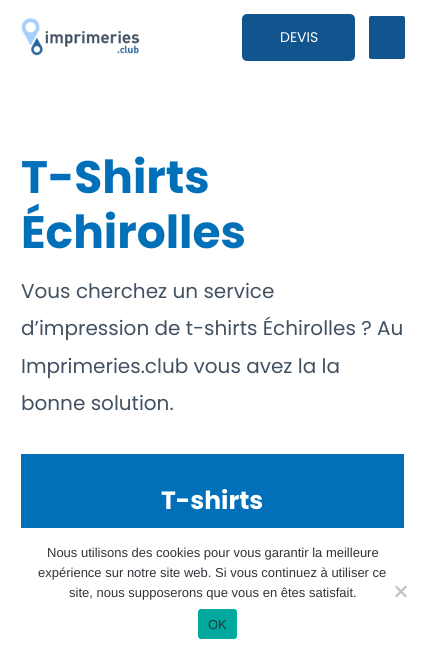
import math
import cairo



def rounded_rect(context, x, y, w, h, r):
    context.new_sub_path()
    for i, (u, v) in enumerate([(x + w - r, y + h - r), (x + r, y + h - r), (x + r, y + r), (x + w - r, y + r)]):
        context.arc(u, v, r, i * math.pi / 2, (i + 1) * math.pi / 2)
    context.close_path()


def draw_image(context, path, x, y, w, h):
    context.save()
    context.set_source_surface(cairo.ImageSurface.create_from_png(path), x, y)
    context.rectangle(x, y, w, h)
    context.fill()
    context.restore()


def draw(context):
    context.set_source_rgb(1, 1, 1)
    context.paint()
    draw_image(context, "images/1.png", 21, 18, 119, 38)
    context.set_source_rgb(18 / 255, 84 / 255, 142 / 255)
    rounded_rect(context, 242, 14, 113, 47, 5)
    context.fill()
    rounded_rect(context, 369, 16, 36, 43, 2)
    context.fill()
    context.set_source_rgb(1 / 255, 112 / 255, 185 / 255)
    context.rectangle(21, 454, 383, 74)
    context.fill()
    context.set_source_rgb(192 / 255, 192 / 255, 192 / 255)
    context.new_path()
    context.move_to(405.5, 585.5)
    context.line_to(407, 587)
    context.line_to(396.5, 597.5)
    context.line_to(395, 596)
    context.close_path()
    context.fill()
    context.new_path()
    context.move_to(395, 587)
    context.line_to(396.5, 585.5)
    context.line_to(407, 596)
    context.line_to(405.5, 597.5)
    context.close_path()
    context.fill()
    context.set_source_rgb(0, 169 / 255, 157 / 255)
    rounded_rect(context, 198, 609, 39, 30, 3)
    context.fill()
    context.select_font_face("Poppins")
    context.set_font_size(14)
    context.set_source_rgb(1, 1, 1)
    context.move_to(280, 42)
    context.show_text("DEVIS")
    context.select_font_face("Poppins", cairo.FontSlant.NORMAL, cairo.FontWeight.BOLD)
    context.set_font_size(45.5)
    context.set_source_rgb(1 / 255, 112 / 255, 185 / 255)
    context.move_to(21, 193)
    context.show_text("T-Shirts")
    context.move_to(21, 248)
    context.show_text("Échirolles")
    context.select_font_face("Poppins")
    context.set_font_size(20)
    context.set_source_rgb(65 / 255, 81 / 255, 97 / 255)
    context.move_to(21, 298)
    context.show_text("Vous cherchez un service")
    context.move_to(21, 335)
    context.show_text("d’impression de t-shirts Échirolles ? Au")
    context.move_to(21, 373)
    context.show_text("Imprimeries.club vous avez la la")
    context.move_to(21, 410)
    context.show_text("bonne solution.")
    context.select_font_face("Poppins", cairo.FontSlant.NORMAL, cairo.FontWeight.BOLD)
    context.set_font_size(25)
    context.set_source_rgb(1, 1, 1)
    context.move_to(161, 509)
    context.show_text("T-shirts")
    context.select_font_face("Liberation Sans")
    context.set_font_size(13)
    context.set_source_rgb(50 / 255, 50 / 255, 58 / 255)
    context.move_to(47, 557)
    context.show_text("Nous utilisons des cookies pour vous garantir la meilleure")
    context.move_to(38, 577)
    context.show_text("expérience sur notre site web. Si vous continuez à utiliser ce")
    context.move_to(69, 597)
    context.show_text("site, nous supposerons que vous en êtes satisfait.")
    context.move_to(208, 629)
    context.show_text("OK")


surface = cairo.ImageSurface(cairo.Format.RGB24, 425, 654)
context = cairo.Context(surface)
options = cairo.FontOptions()
options.set_hint_metrics(cairo.HintMetrics.OFF)
options.set_hint_style(cairo.HintStyle.NONE)
context.set_font_options(options)
context.set_miter_limit(4)
draw(context)
surface.write_to_png("out.png")
